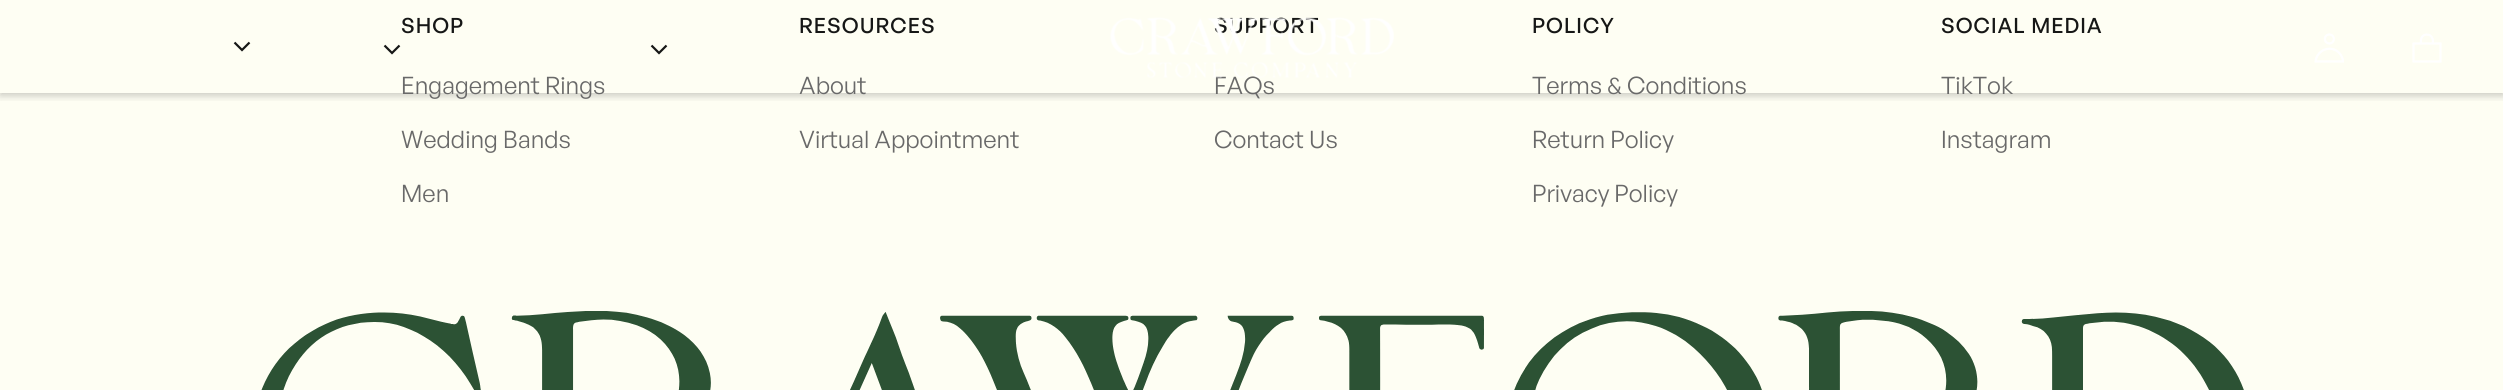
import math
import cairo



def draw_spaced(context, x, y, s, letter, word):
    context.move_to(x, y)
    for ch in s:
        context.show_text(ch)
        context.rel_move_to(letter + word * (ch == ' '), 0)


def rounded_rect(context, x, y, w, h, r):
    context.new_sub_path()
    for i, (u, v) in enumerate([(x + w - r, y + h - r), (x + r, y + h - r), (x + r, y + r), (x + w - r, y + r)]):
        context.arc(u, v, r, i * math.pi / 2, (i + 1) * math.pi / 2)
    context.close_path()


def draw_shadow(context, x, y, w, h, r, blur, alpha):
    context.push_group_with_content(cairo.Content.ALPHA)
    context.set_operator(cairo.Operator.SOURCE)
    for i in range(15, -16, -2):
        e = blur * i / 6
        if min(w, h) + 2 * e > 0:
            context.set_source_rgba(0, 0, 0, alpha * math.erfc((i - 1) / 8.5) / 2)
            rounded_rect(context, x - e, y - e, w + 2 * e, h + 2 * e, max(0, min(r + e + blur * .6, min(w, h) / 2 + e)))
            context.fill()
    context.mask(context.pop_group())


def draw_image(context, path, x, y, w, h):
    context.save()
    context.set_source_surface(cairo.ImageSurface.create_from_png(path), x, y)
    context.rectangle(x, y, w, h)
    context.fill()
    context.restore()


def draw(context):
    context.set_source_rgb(254 / 255, 254 / 255, 243 / 255)
    context.paint()
    context.save()
    context.rectangle(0, 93, 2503, 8)
    context.clip()
    context.set_source_rgb(0, 0, 0)
    draw_shadow(context, 0, 3, 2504, 93, 0, 4, 0.2)
    context.restore()
    context.new_path()
    context.move_to(234.5, 42.5)
    context.line_to(242, 50)
    context.line_to(249.5, 42.5)
    context.set_source_rgb(22 / 255, 23 / 255, 22 / 255)
    context.set_line_width(2.2)
    context.stroke()
    context.new_path()
    context.move_to(384.5, 45.5)
    context.line_to(392, 53)
    context.line_to(399.5, 45.5)
    context.stroke()
    context.new_path()
    context.move_to(651.5, 45.5)
    context.line_to(659, 53)
    context.line_to(666.5, 45.5)
    context.stroke()
    draw_image(context, "images/2.png", 2314, 33, 30, 30)
    context.new_path()
    context.move_to(2433, 43.5)
    context.curve_to(2433, 41.5, 2433, 39.5, 2432, 37.5)
    context.curve_to(2430, 33.5, 2423, 33.5, 2421.5, 38)
    context.curve_to(2420.5, 40, 2421, 41.5, 2421, 43.5)
    context.move_to(2440.5, 43.5)
    context.line_to(2413.5, 43.5)
    context.line_to(2413.5, 61.5)
    context.line_to(2440.5, 61.5)
    context.close_path()
    context.set_source_rgb(1, 1, 1)
    context.stroke()
    draw_image(context, "images/3.png", 261, 311, 1983, 79)
    context.select_font_face("General Sans Medium")
    context.set_font_size(21)
    context.set_source_rgb(22 / 255, 23 / 255, 22 / 255)
    draw_spaced(context, 401, 33, "SHOP", 1, 0)
    context.select_font_face("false")
    context.set_font_size(24)
    context.set_source_rgb(105 / 255, 105 / 255, 105 / 255)
    context.move_to(401, 94)
    context.show_text("Engagement Rings")
    context.move_to(401, 148)
    context.show_text("Wedding Bands")
    context.move_to(401, 202)
    context.show_text("Men")
    context.select_font_face("General Sans Medium")
    context.set_font_size(21)
    context.set_source_rgb(22 / 255, 23 / 255, 22 / 255)
    draw_spaced(context, 799, 33, "RESOURCES", 1, 0)
    context.select_font_face("false")
    context.set_font_size(24)
    context.set_source_rgb(105 / 255, 105 / 255, 105 / 255)
    context.move_to(799, 94)
    context.show_text("About")
    context.move_to(799, 148)
    context.show_text("Virtual Appointment")
    context.select_font_face("General Sans Medium")
    context.set_font_size(21)
    context.set_source_rgb(22 / 255, 23 / 255, 22 / 255)
    draw_spaced(context, 1214, 33, "SUPPORT", 1, 0)
    context.select_font_face("false")
    context.set_font_size(24)
    context.set_source_rgb(105 / 255, 105 / 255, 105 / 255)
    context.move_to(1214, 94)
    context.show_text("FAQs")
    draw_image(context, "images/1.png", 1110, 17, 284, 61)
    context.move_to(1214, 148)
    context.show_text("Contact Us")
    context.select_font_face("General Sans Medium")
    context.set_font_size(21)
    context.set_source_rgb(22 / 255, 23 / 255, 22 / 255)
    draw_spaced(context, 1532, 33, "POLICY", 1, 0)
    context.select_font_face("false")
    context.set_font_size(24)
    context.set_source_rgb(105 / 255, 105 / 255, 105 / 255)
    context.move_to(1532, 94)
    context.show_text("Terms & Conditions")
    context.move_to(1532, 148)
    context.show_text("Return Policy")
    context.move_to(1532, 202)
    context.show_text("Privacy Policy")
    context.select_font_face("General Sans Medium")
    context.set_font_size(21)
    context.set_source_rgb(22 / 255, 23 / 255, 22 / 255)
    draw_spaced(context, 1941, 33, "SOCIAL MEDIA", 1, 0)
    context.select_font_face("false")
    context.set_font_size(24)
    context.set_source_rgb(105 / 255, 105 / 255, 105 / 255)
    context.move_to(1941, 94)
    context.show_text("TikTok")
    context.move_to(1941, 148)
    context.show_text("Instagram")


surface = cairo.ImageSurface(cairo.Format.RGB24, 2503, 390)
context = cairo.Context(surface)
options = cairo.FontOptions()
options.set_hint_metrics(cairo.HintMetrics.OFF)
options.set_hint_style(cairo.HintStyle.NONE)
context.set_font_options(options)
context.set_miter_limit(4)
draw(context)
surface.write_to_png("out.png")
